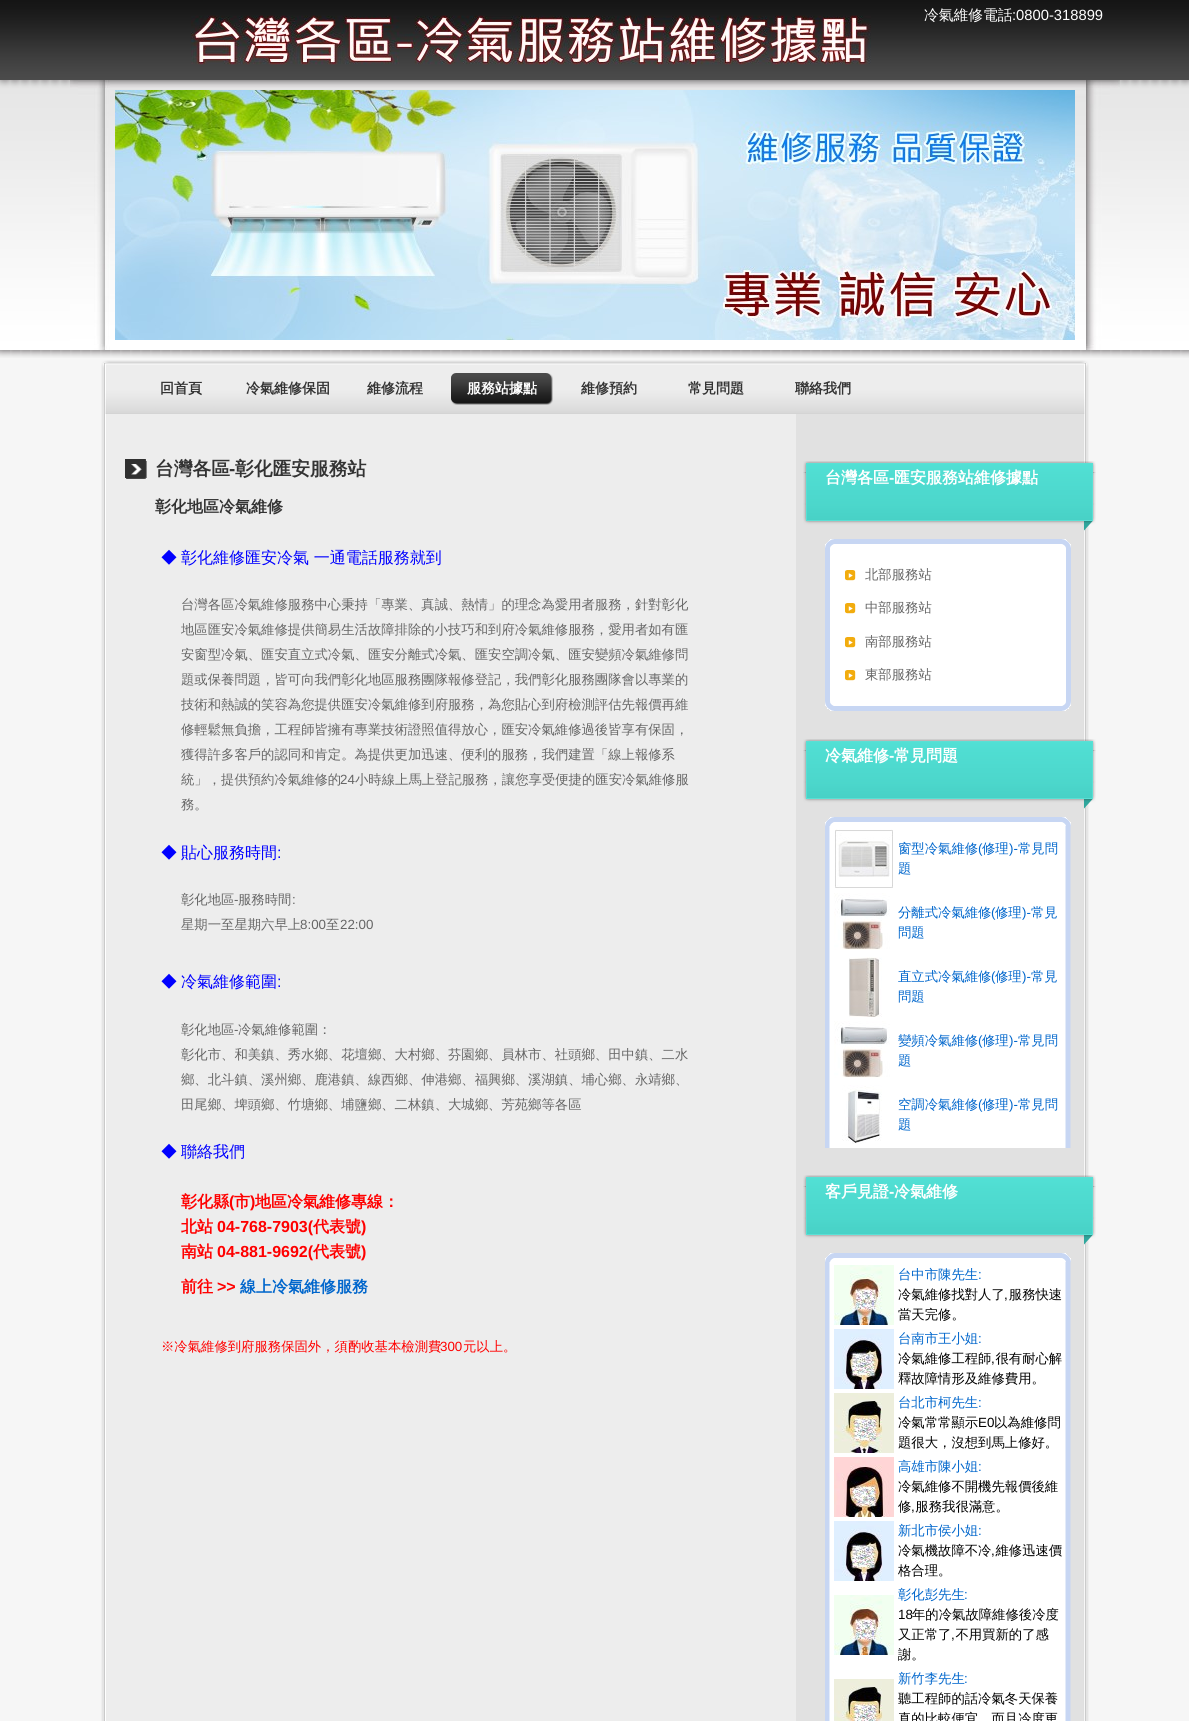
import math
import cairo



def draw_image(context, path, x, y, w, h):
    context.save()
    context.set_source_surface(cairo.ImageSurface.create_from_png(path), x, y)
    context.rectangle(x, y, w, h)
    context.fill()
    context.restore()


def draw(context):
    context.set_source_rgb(246 / 255, 246 / 255, 246 / 255)
    context.paint()
    draw_image(context, "images/1.png", 0, 0, 1189, 358)
    context.set_source_rgb(75 / 255, 75 / 255, 75 / 255)
    context.rectangle(0, 79, 1189, 1)
    context.fill()
    draw_image(context, "images/2.png", 191, 15, 680, 50)
    draw_image(context, "images/3.png", 70, 80, 1050, 270)
    draw_image(context, "images/4.png", 115, 90, 960, 250)
    draw_image(context, "images/5.png", 101, 360, 988, 54)
    draw_image(context, "images/6.png", 451, 373, 102, 32)
    draw_image(context, "images/7.png", 101, 414, 988, 1307)
    draw_image(context, "images/8.png", 125, 459, 22, 20)
    draw_image(context, "images/9.png", 803, 461, 293, 70)
    draw_image(context, "images/10.png", 825, 539, 246, 9)
    draw_image(context, "images/11.png", 825, 548, 246, 153)
    draw_image(context, "images/12.png", 845, 570, 11, 11)
    draw_image(context, "images/12.png", 845, 603, 11, 11)
    draw_image(context, "images/12.png", 845, 637, 11, 11)
    draw_image(context, "images/12.png", 845, 670, 11, 11)
    draw_image(context, "images/13.png", 825, 701, 246, 10)
    draw_image(context, "images/9.png", 803, 739, 293, 70)
    draw_image(context, "images/10.png", 825, 817, 246, 9)
    draw_image(context, "images/14.png", 825, 826, 246, 322)
    draw_image(context, "images/15.png", 835, 829, 58, 59)
    draw_image(context, "images/16.png", 834, 893, 56, 57)
    draw_image(context, "images/17.png", 849, 957, 33, 60)
    draw_image(context, "images/16.png", 834, 1021, 56, 57)
    draw_image(context, "images/18.png", 842, 1085, 40, 59)
    draw_image(context, "images/9.png", 803, 1175, 293, 70)
    draw_image(context, "images/10.png", 825, 1253, 246, 9)
    draw_image(context, "images/19.png", 825, 1262, 246, 459)
    draw_image(context, "images/20.png", 834, 1265, 60, 60)
    draw_image(context, "images/21.png", 834, 1329, 60, 60)
    draw_image(context, "images/22.png", 834, 1393, 60, 60)
    draw_image(context, "images/23.png", 834, 1457, 60, 60)
    draw_image(context, "images/21.png", 834, 1521, 60, 60)
    draw_image(context, "images/20.png", 834, 1595, 60, 60)
    draw_image(context, "images/24.png", 834, 1679, 60, 42)
    context.select_font_face("WenQuanYi Zen Hei Medium")
    context.set_font_size(14.75)
    context.set_source_rgb(1, 1, 1)
    context.move_to(924, 20)
    context.show_text("冷氣維修電話")
    context.select_font_face("Liberation Sans")
    context.move_to(1012, 20)
    context.show_text(":0800-318899")
    context.select_font_face("WenQuanYi Zen Hei", cairo.FontSlant.NORMAL, cairo.FontWeight.BOLD)
    context.set_font_size(14)
    context.set_source_rgb(51 / 255, 51 / 255, 51 / 255)
    context.move_to(160, 393)
    context.show_text("回首頁")
    context.move_to(246, 393)
    context.show_text("冷氣維修保固")
    context.move_to(367, 393)
    context.show_text("維修流程")
    context.set_source_rgb(1, 1, 1)
    context.move_to(467, 393)
    context.show_text("服務站據點")
    context.set_source_rgb(51 / 255, 51 / 255, 51 / 255)
    context.move_to(581, 393)
    context.show_text("維修預約")
    context.move_to(688, 393)
    context.show_text("常見問題")
    context.move_to(795, 393)
    context.show_text("聯絡我們")
    context.set_font_size(18.75)
    context.move_to(155, 475)
    context.show_text("台灣各區")
    context.select_font_face("Liberation Sans", cairo.FontSlant.NORMAL, cairo.FontWeight.BOLD)
    context.move_to(229, 475)
    context.show_text("-")
    context.select_font_face("WenQuanYi Zen Hei", cairo.FontSlant.NORMAL, cairo.FontWeight.BOLD)
    context.move_to(235, 475)
    context.show_text("彰化匯安服務站")
    context.set_font_size(16)
    context.move_to(155, 512)
    context.show_text("彰化地區冷氣維修")
    context.select_font_face("WenQuanYi Zen Hei Medium")
    context.set_source_rgb(0, 0, 1)
    context.move_to(161, 563)
    context.show_text("◆")
    context.move_to(181, 563)
    context.show_text("彰化維修匯安冷氣 一通電話服務就到")
    context.set_font_size(13.35)
    context.set_source_rgb(102 / 255, 102 / 255, 102 / 255)
    context.move_to(181, 609)
    context.show_text("台灣各區冷氣維修服務中心秉持「專業、真誠、熱情」的理念為愛用者服務，針對彰化")
    context.move_to(181, 634)
    context.show_text("地區匯安冷氣維修提供簡易生活故障排除的小技巧和到府冷氣維修服務，愛用者如有匯")
    context.move_to(181, 659)
    context.show_text("安窗型冷氣、匯安直立式冷氣、匯安分離式冷氣、匯安空調冷氣、匯安變頻冷氣維修問")
    context.move_to(181, 684)
    context.show_text("題或保養問題，皆可向我們彰化地區服務團隊報修登記，我們彰化服務團隊會以專業的")
    context.move_to(181, 709)
    context.show_text("技術和熱誠的笑容為您提供匯安冷氣維修到府服務，為您貼心到府檢測評估先報價再維")
    context.move_to(181, 734)
    context.show_text("修輕鬆無負擔，工程師皆擁有專業技術證照值得放心，匯安冷氣維修過後皆享有保固，")
    context.move_to(181, 759)
    context.show_text("獲得許多客戶的認同和肯定。為提供更加迅速、便利的服務，我們建置「線上報修系")
    context.move_to(181, 784)
    context.show_text("統」，提供預約冷氣維修的")
    context.select_font_face("Liberation Sans")
    context.move_to(340, 784)
    context.show_text("24")
    context.select_font_face("WenQuanYi Zen Hei Medium")
    context.move_to(355, 784)
    context.show_text("小時線上馬上登記服務，讓您享受便捷的匯安冷氣維修服")
    context.move_to(181, 809)
    context.show_text("務。")
    context.set_font_size(16)
    context.set_source_rgb(0, 0, 1)
    context.move_to(161, 858)
    context.show_text("◆")
    context.move_to(181, 858)
    context.show_text("貼心服務時間")
    context.select_font_face("Liberation Sans")
    context.move_to(277, 858)
    context.show_text(":")
    context.select_font_face("WenQuanYi Zen Hei Medium")
    context.set_font_size(13.35)
    context.set_source_rgb(102 / 255, 102 / 255, 102 / 255)
    context.move_to(181, 904)
    context.show_text("彰化地區")
    context.select_font_face("Liberation Sans")
    context.move_to(234, 904)
    context.show_text("-")
    context.select_font_face("WenQuanYi Zen Hei Medium")
    context.move_to(238, 904)
    context.show_text("服務時間")
    context.select_font_face("Liberation Sans")
    context.move_to(292, 904)
    context.show_text(":")
    context.select_font_face("WenQuanYi Zen Hei Medium")
    context.move_to(181, 929)
    context.show_text("星期一至星期六早上")
    context.select_font_face("Liberation Sans")
    context.move_to(300, 929)
    context.show_text("8:00")
    context.select_font_face("WenQuanYi Zen Hei Medium")
    context.move_to(326, 929)
    context.show_text("至")
    context.select_font_face("Liberation Sans")
    context.move_to(340, 929)
    context.show_text("22:00")
    context.select_font_face("WenQuanYi Zen Hei Medium")
    context.set_font_size(16)
    context.set_source_rgb(0, 0, 1)
    context.move_to(161, 987)
    context.show_text("◆")
    context.move_to(181, 987)
    context.show_text("冷氣維修範圍")
    context.select_font_face("Liberation Sans")
    context.move_to(277, 987)
    context.show_text(":")
    context.select_font_face("WenQuanYi Zen Hei Medium")
    context.set_font_size(13.35)
    context.set_source_rgb(102 / 255, 102 / 255, 102 / 255)
    context.move_to(181, 1034)
    context.show_text("彰化地區")
    context.select_font_face("Liberation Sans")
    context.move_to(234, 1034)
    context.show_text("-")
    context.select_font_face("WenQuanYi Zen Hei Medium")
    context.move_to(238, 1034)
    context.show_text("冷氣維修範圍：")
    context.move_to(181, 1059)
    context.show_text("彰化市、和美鎮、秀水鄉、花壇鄉、大村鄉、芬園鄉、員林市、社頭鄉、田中鎮、二水")
    context.move_to(181, 1084)
    context.show_text("鄉、北斗鎮、溪州鄉、鹿港鎮、線西鄉、伸港鄉、福興鄉、溪湖鎮、埔心鄉、永靖鄉、")
    context.move_to(181, 1109)
    context.show_text("田尾鄉、埤頭鄉、竹塘鄉、埔鹽鄉、二林鎮、大城鄉、芳苑鄉等各區")
    context.set_font_size(16)
    context.set_source_rgb(0, 0, 1)
    context.move_to(161, 1157)
    context.show_text("◆")
    context.move_to(181, 1157)
    context.show_text("聯絡我們")
    context.select_font_face("WenQuanYi Zen Hei", cairo.FontSlant.NORMAL, cairo.FontWeight.BOLD)
    context.set_source_rgb(1, 0, 0)
    context.move_to(181, 1207)
    context.show_text("彰化縣")
    context.select_font_face("Liberation Sans", cairo.FontSlant.NORMAL, cairo.FontWeight.BOLD)
    context.move_to(229, 1207)
    context.show_text("(")
    context.select_font_face("WenQuanYi Zen Hei", cairo.FontSlant.NORMAL, cairo.FontWeight.BOLD)
    context.move_to(234, 1207)
    context.show_text("市")
    context.select_font_face("Liberation Sans", cairo.FontSlant.NORMAL, cairo.FontWeight.BOLD)
    context.move_to(250, 1207)
    context.show_text(")")
    context.select_font_face("WenQuanYi Zen Hei", cairo.FontSlant.NORMAL, cairo.FontWeight.BOLD)
    context.move_to(255, 1207)
    context.show_text("地區冷氣維修專線：")
    context.move_to(181, 1232)
    context.show_text("北站")
    context.select_font_face("Liberation Sans", cairo.FontSlant.NORMAL, cairo.FontWeight.BOLD)
    context.move_to(217, 1232)
    context.show_text("04-768-7903(")
    context.select_font_face("WenQuanYi Zen Hei", cairo.FontSlant.NORMAL, cairo.FontWeight.BOLD)
    context.move_to(313, 1232)
    context.show_text("代表號")
    context.select_font_face("Liberation Sans", cairo.FontSlant.NORMAL, cairo.FontWeight.BOLD)
    context.move_to(361, 1232)
    context.show_text(")")
    context.select_font_face("WenQuanYi Zen Hei", cairo.FontSlant.NORMAL, cairo.FontWeight.BOLD)
    context.move_to(181, 1257)
    context.show_text("南站")
    context.select_font_face("Liberation Sans", cairo.FontSlant.NORMAL, cairo.FontWeight.BOLD)
    context.move_to(217, 1257)
    context.show_text("04-881-9692(")
    context.select_font_face("WenQuanYi Zen Hei", cairo.FontSlant.NORMAL, cairo.FontWeight.BOLD)
    context.move_to(313, 1257)
    context.show_text("代表號")
    context.select_font_face("Liberation Sans", cairo.FontSlant.NORMAL, cairo.FontWeight.BOLD)
    context.move_to(361, 1257)
    context.show_text(")")
    context.select_font_face("WenQuanYi Zen Hei", cairo.FontSlant.NORMAL, cairo.FontWeight.BOLD)
    context.move_to(181, 1292)
    context.show_text("前往")
    context.select_font_face("Liberation Sans", cairo.FontSlant.NORMAL, cairo.FontWeight.BOLD)
    context.move_to(217, 1292)
    context.show_text(">>")
    context.select_font_face("WenQuanYi Zen Hei", cairo.FontSlant.NORMAL, cairo.FontWeight.BOLD)
    context.set_source_rgb(0, 102 / 255, 204 / 255)
    context.move_to(240, 1292)
    context.show_text("線上冷氣維修服務")
    context.select_font_face("WenQuanYi Zen Hei Medium")
    context.set_font_size(13.35)
    context.set_source_rgb(1, 0, 0)
    context.move_to(161, 1351)
    context.show_text("※冷氣維修到府服務保固外，須酌收基本檢測費")
    context.select_font_face("Liberation Sans")
    context.move_to(440, 1351)
    context.show_text("300")
    context.select_font_face("WenQuanYi Zen Hei Medium")
    context.move_to(463, 1351)
    context.show_text("元以上。")
    context.select_font_face("WenQuanYi Zen Hei", cairo.FontSlant.NORMAL, cairo.FontWeight.BOLD)
    context.set_font_size(16)
    context.set_source_rgb(1, 1, 1)
    context.move_to(825, 483)
    context.show_text("台灣各區")
    context.select_font_face("Liberation Sans", cairo.FontSlant.NORMAL, cairo.FontWeight.BOLD)
    context.move_to(889, 483)
    context.show_text("-")
    context.select_font_face("WenQuanYi Zen Hei", cairo.FontSlant.NORMAL, cairo.FontWeight.BOLD)
    context.move_to(894, 483)
    context.show_text("匯安服務站維修據點")
    context.select_font_face("WenQuanYi Zen Hei Medium")
    context.set_font_size(13.35)
    context.set_source_rgb(102 / 255, 102 / 255, 102 / 255)
    context.move_to(865, 579)
    context.show_text("北部服務站")
    context.move_to(865, 612)
    context.show_text("中部服務站")
    context.move_to(865, 646)
    context.show_text("南部服務站")
    context.move_to(865, 679)
    context.show_text("東部服務站")
    context.select_font_face("WenQuanYi Zen Hei", cairo.FontSlant.NORMAL, cairo.FontWeight.BOLD)
    context.set_font_size(16)
    context.set_source_rgb(1, 1, 1)
    context.move_to(825, 761)
    context.show_text("冷氣維修")
    context.select_font_face("Liberation Sans", cairo.FontSlant.NORMAL, cairo.FontWeight.BOLD)
    context.move_to(889, 761)
    context.show_text("-")
    context.select_font_face("WenQuanYi Zen Hei", cairo.FontSlant.NORMAL, cairo.FontWeight.BOLD)
    context.move_to(894, 761)
    context.show_text("常見問題")
    context.select_font_face("WenQuanYi Zen Hei Medium")
    context.set_font_size(13.35)
    context.set_source_rgb(0, 102 / 255, 204 / 255)
    context.move_to(898, 853)
    context.show_text("窗型冷氣維修")
    context.select_font_face("Liberation Sans")
    context.move_to(978, 853)
    context.show_text("(")
    context.select_font_face("WenQuanYi Zen Hei Medium")
    context.move_to(982, 853)
    context.show_text("修理")
    context.select_font_face("Liberation Sans")
    context.move_to(1009, 853)
    context.show_text(")-")
    context.select_font_face("WenQuanYi Zen Hei Medium")
    context.move_to(1018, 853)
    context.show_text("常見問")
    context.move_to(898, 873)
    context.show_text("題")
    context.move_to(898, 917)
    context.show_text("分離式冷氣維修")
    context.select_font_face("Liberation Sans")
    context.move_to(991, 917)
    context.show_text("(")
    context.select_font_face("WenQuanYi Zen Hei Medium")
    context.move_to(995, 917)
    context.show_text("修理")
    context.select_font_face("Liberation Sans")
    context.move_to(1022, 917)
    context.show_text(")-")
    context.select_font_face("WenQuanYi Zen Hei Medium")
    context.move_to(1031, 917)
    context.show_text("常見")
    context.move_to(898, 937)
    context.show_text("問題")
    context.move_to(898, 981)
    context.show_text("直立式冷氣維修")
    context.select_font_face("Liberation Sans")
    context.move_to(991, 981)
    context.show_text("(")
    context.select_font_face("WenQuanYi Zen Hei Medium")
    context.move_to(995, 981)
    context.show_text("修理")
    context.select_font_face("Liberation Sans")
    context.move_to(1022, 981)
    context.show_text(")-")
    context.select_font_face("WenQuanYi Zen Hei Medium")
    context.move_to(1031, 981)
    context.show_text("常見")
    context.move_to(898, 1001)
    context.show_text("問題")
    context.move_to(898, 1045)
    context.show_text("變頻冷氣維修")
    context.select_font_face("Liberation Sans")
    context.move_to(978, 1045)
    context.show_text("(")
    context.select_font_face("WenQuanYi Zen Hei Medium")
    context.move_to(982, 1045)
    context.show_text("修理")
    context.select_font_face("Liberation Sans")
    context.move_to(1009, 1045)
    context.show_text(")-")
    context.select_font_face("WenQuanYi Zen Hei Medium")
    context.move_to(1018, 1045)
    context.show_text("常見問")
    context.move_to(898, 1065)
    context.show_text("題")
    context.move_to(898, 1109)
    context.show_text("空調冷氣維修")
    context.select_font_face("Liberation Sans")
    context.move_to(978, 1109)
    context.show_text("(")
    context.select_font_face("WenQuanYi Zen Hei Medium")
    context.move_to(982, 1109)
    context.show_text("修理")
    context.select_font_face("Liberation Sans")
    context.move_to(1009, 1109)
    context.show_text(")-")
    context.select_font_face("WenQuanYi Zen Hei Medium")
    context.move_to(1018, 1109)
    context.show_text("常見問")
    context.move_to(898, 1129)
    context.show_text("題")
    context.select_font_face("WenQuanYi Zen Hei", cairo.FontSlant.NORMAL, cairo.FontWeight.BOLD)
    context.set_font_size(16)
    context.set_source_rgb(1, 1, 1)
    context.move_to(825, 1197)
    context.show_text("客戶見證")
    context.select_font_face("Liberation Sans", cairo.FontSlant.NORMAL, cairo.FontWeight.BOLD)
    context.move_to(889, 1197)
    context.show_text("-")
    context.select_font_face("WenQuanYi Zen Hei", cairo.FontSlant.NORMAL, cairo.FontWeight.BOLD)
    context.move_to(894, 1197)
    context.show_text("冷氣維修")
    context.select_font_face("WenQuanYi Zen Hei Medium")
    context.set_font_size(13.35)
    context.set_source_rgb(0, 102 / 255, 204 / 255)
    context.move_to(898, 1279)
    context.show_text("台中市陳先生")
    context.select_font_face("Liberation Sans")
    context.move_to(978, 1279)
    context.show_text(":")
    context.select_font_face("WenQuanYi Zen Hei Medium")
    context.set_source_rgb(0, 0, 0)
    context.move_to(898, 1299)
    context.show_text("冷氣維修找對人了 服務快速")
    context.select_font_face("Liberation Sans")
    context.move_to(1004, 1299)
    context.show_text(",")
    context.select_font_face("WenQuanYi Zen Hei Medium")
    context.move_to(898, 1319)
    context.show_text("當天完修。")
    context.set_source_rgb(0, 102 / 255, 204 / 255)
    context.move_to(898, 1343)
    context.show_text("台南市王小姐")
    context.select_font_face("Liberation Sans")
    context.move_to(978, 1343)
    context.show_text(":")
    context.select_font_face("WenQuanYi Zen Hei Medium")
    context.set_source_rgb(0, 0, 0)
    context.move_to(898, 1363)
    context.show_text("冷氣維修工程師 很有耐心解")
    context.select_font_face("Liberation Sans")
    context.move_to(991, 1363)
    context.show_text(",")
    context.select_font_face("WenQuanYi Zen Hei Medium")
    context.move_to(898, 1383)
    context.show_text("釋故障情形及維修費用。")
    context.set_source_rgb(0, 102 / 255, 204 / 255)
    context.move_to(898, 1407)
    context.show_text("台北市柯先生")
    context.select_font_face("Liberation Sans")
    context.move_to(978, 1407)
    context.show_text(":")
    context.select_font_face("WenQuanYi Zen Hei Medium")
    context.set_source_rgb(0, 0, 0)
    context.move_to(898, 1427)
    context.show_text("冷氣常常顯示")
    context.select_font_face("Liberation Sans")
    context.move_to(978, 1427)
    context.show_text("E0")
    context.select_font_face("WenQuanYi Zen Hei Medium")
    context.move_to(994, 1427)
    context.show_text("以為維修問")
    context.move_to(898, 1447)
    context.show_text("題很大，沒想到馬上修好。")
    context.set_source_rgb(0, 102 / 255, 204 / 255)
    context.move_to(898, 1471)
    context.show_text("高雄市陳小姐")
    context.select_font_face("Liberation Sans")
    context.move_to(978, 1471)
    context.show_text(":")
    context.select_font_face("WenQuanYi Zen Hei Medium")
    context.set_source_rgb(0, 0, 0)
    context.move_to(898, 1491)
    context.show_text("冷氣維修不開機先報價後維")
    context.move_to(898, 1511)
    context.show_text("修 服務我很滿意。")
    context.select_font_face("Liberation Sans")
    context.move_to(911, 1511)
    context.show_text(",")
    context.select_font_face("WenQuanYi Zen Hei Medium")
    context.set_source_rgb(0, 102 / 255, 204 / 255)
    context.move_to(898, 1535)
    context.show_text("新北市侯小姐")
    context.select_font_face("Liberation Sans")
    context.move_to(978, 1535)
    context.show_text(":")
    context.select_font_face("WenQuanYi Zen Hei Medium")
    context.set_source_rgb(0, 0, 0)
    context.move_to(898, 1555)
    context.show_text("冷氣機故障不冷 維修迅速價")
    context.select_font_face("Liberation Sans")
    context.move_to(991, 1555)
    context.show_text(",")
    context.select_font_face("WenQuanYi Zen Hei Medium")
    context.move_to(898, 1575)
    context.show_text("格合理。")
    context.set_source_rgb(0, 102 / 255, 204 / 255)
    context.move_to(898, 1599)
    context.show_text("彰化彭先生")
    context.select_font_face("Liberation Sans")
    context.move_to(964, 1599)
    context.show_text(":")
    context.set_source_rgb(0, 0, 0)
    context.move_to(898, 1619)
    context.show_text("18")
    context.select_font_face("WenQuanYi Zen Hei Medium")
    context.move_to(912, 1619)
    context.show_text("年的冷氣故障維修後冷度")
    context.move_to(898, 1639)
    context.show_text("又正常了 不用買新的了感")
    context.select_font_face("Liberation Sans")
    context.move_to(951, 1639)
    context.show_text(",")
    context.select_font_face("WenQuanYi Zen Hei Medium")
    context.move_to(898, 1659)
    context.show_text("謝。")
    context.set_source_rgb(0, 102 / 255, 204 / 255)
    context.move_to(898, 1683)
    context.show_text("新竹李先生")
    context.select_font_face("Liberation Sans")
    context.move_to(964, 1683)
    context.show_text(":")
    context.select_font_face("WenQuanYi Zen Hei Medium")
    context.set_source_rgb(0, 0, 0)
    context.move_to(898, 1703)
    context.show_text("聽工程師的話冷氣冬天保養")
    context.move_to(898, 1723)
    context.show_text("真的比較便宜，而且冷度更")


surface = cairo.ImageSurface(cairo.Format.RGB24, 1189, 1721)
context = cairo.Context(surface)
options = cairo.FontOptions()
options.set_hint_metrics(cairo.HintMetrics.OFF)
options.set_hint_style(cairo.HintStyle.NONE)
context.set_font_options(options)
context.set_miter_limit(4)
draw(context)
surface.write_to_png("out.png")
